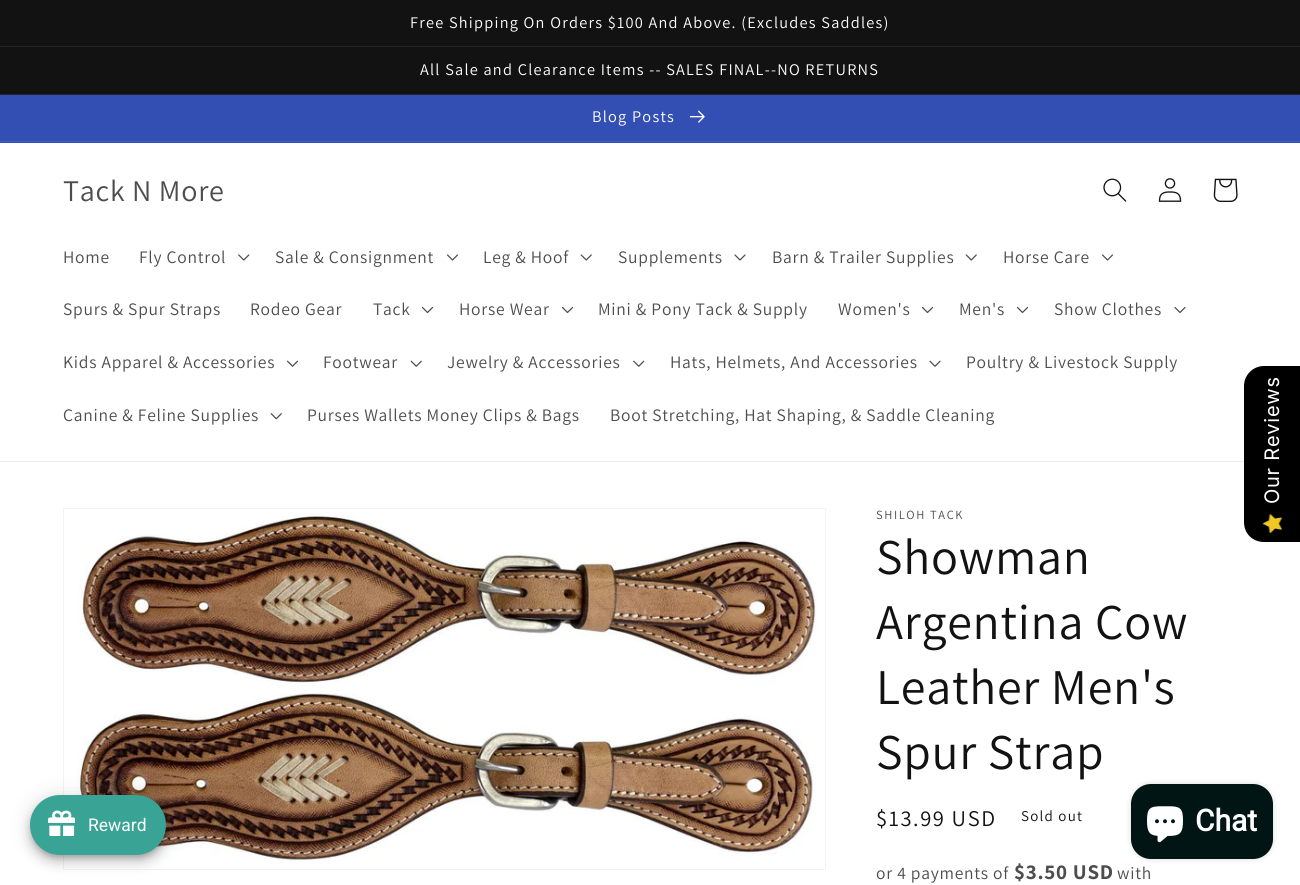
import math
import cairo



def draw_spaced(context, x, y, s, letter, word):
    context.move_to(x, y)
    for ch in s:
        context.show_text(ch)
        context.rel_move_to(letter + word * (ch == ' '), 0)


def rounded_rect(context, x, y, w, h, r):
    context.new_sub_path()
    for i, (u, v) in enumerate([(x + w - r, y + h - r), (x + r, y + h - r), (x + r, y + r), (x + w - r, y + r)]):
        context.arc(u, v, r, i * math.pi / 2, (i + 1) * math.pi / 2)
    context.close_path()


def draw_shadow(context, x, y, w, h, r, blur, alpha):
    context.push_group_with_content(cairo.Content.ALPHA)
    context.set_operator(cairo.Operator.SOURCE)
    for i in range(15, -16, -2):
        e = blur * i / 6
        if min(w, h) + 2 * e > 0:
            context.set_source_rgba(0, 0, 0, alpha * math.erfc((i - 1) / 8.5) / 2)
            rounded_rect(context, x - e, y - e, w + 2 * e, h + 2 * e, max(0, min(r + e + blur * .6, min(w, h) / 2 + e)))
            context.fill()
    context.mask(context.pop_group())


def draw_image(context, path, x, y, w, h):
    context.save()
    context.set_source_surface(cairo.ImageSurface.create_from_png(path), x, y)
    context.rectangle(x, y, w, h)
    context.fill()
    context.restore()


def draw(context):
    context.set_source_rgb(1, 1, 1)
    context.paint()
    context.set_source_rgb(18 / 255, 18 / 255, 18 / 255)
    context.rectangle(0, 0, 1300, 94)
    context.fill()
    context.set_source_rgb(37 / 255, 37 / 255, 37 / 255)
    context.rectangle(0, 46, 1300, 1)
    context.fill()
    context.rectangle(0, 94, 1300, 1)
    context.fill()
    context.set_source_rgb(51 / 255, 79 / 255, 180 / 255)
    context.rectangle(0, 95, 1300, 48)
    context.fill()
    context.set_source_rgb(67 / 255, 93 / 255, 186 / 255)
    context.rectangle(0, 141, 1300, 1)
    context.fill()
    draw_image(context, "images/1.png", 690, 110, 15, 13)
    context.set_source_rgb(236 / 255, 236 / 255, 236 / 255)
    context.rectangle(0, 461, 1244, 1)
    context.fill()
    draw_image(context, "images/2.png", 1103, 178, 24, 24)
    draw_image(context, "images/3.png", 1158, 178, 24, 24)
    draw_image(context, "images/4.png", 1213, 178, 25, 24)
    draw_image(context, "images/5.png", 238, 254, 12, 7)
    draw_image(context, "images/6.png", 447, 254, 11, 7)
    draw_image(context, "images/7.png", 580, 254, 12, 7)
    draw_image(context, "images/8.png", 734, 254, 12, 7)
    draw_image(context, "images/7.png", 965, 254, 12, 7)
    draw_image(context, "images/6.png", 1102, 254, 11, 7)
    draw_image(context, "images/9.png", 421, 306, 13, 8)
    draw_image(context, "images/9.png", 561, 306, 13, 8)
    draw_image(context, "images/9.png", 921, 306, 13, 8)
    draw_image(context, "images/9.png", 1016, 306, 13, 8)
    draw_image(context, "images/10.png", 1174, 307, 12, 6)
    draw_image(context, "images/11.png", 286, 360, 13, 7)
    draw_image(context, "images/12.png", 410, 360, 12, 7)
    draw_image(context, "images/13.png", 633, 360, 12, 7)
    draw_image(context, "images/14.png", 929, 360, 12, 7)
    draw_image(context, "images/15.png", 270, 413, 12, 7)
    context.set_source_rgb(0, 0, 0)
    context.new_path()
    context.move_to(1244, 522)
    context.line_to(1244, 386)
    context.curve_to(1244, 375, 1253, 366, 1264, 366)
    context.line_to(1300, 366)
    context.line_to(1300, 542)
    context.line_to(1264, 542)
    context.curve_to(1253, 542, 1244, 534, 1244, 522)
    context.close_path()
    context.fill()
    draw_image(context, "images/16.png", 1262, 514, 20, 19)
    context.rectangle(63.5, 508.5, 762, 361)
    context.set_source_rgb(243 / 255, 243 / 255, 243 / 255)
    context.set_line_width(1)
    context.stroke()
    draw_image(context, "images/18.png", 77, 514, 741, 350)
    context.set_source_rgb(0, 0, 0)
    draw_shadow(context, 30, 796, 136, 60, 30, 11, 0.12)
    draw_shadow(context, 30, 803, 136, 60, 30, 6, 0.14)
    draw_shadow(context, 31, 800, 134, 58, 29, 3, 0.2)
    context.set_source_rgb(57 / 255, 163 / 255, 149 / 255)
    rounded_rect(context, 30, 795, 136, 60, 30)
    context.fill()
    draw_image(context, "images/17.png", 48, 810, 27, 26)
    context.set_source_rgb(0, 0, 0)
    draw_shadow(context, 1131, 784, 142, 75, 20, 3, 0.15)
    context.set_source_rgb(0, 21 / 255, 20 / 255)
    rounded_rect(context, 1131, 784, 142, 75, 20)
    context.fill()
    draw_image(context, "images/19.png", 1147, 806, 36, 37)
    context.select_font_face("Assistant")
    context.set_font_size(16.25)
    context.set_source_rgb(1, 1, 1)
    draw_spaced(context, 410, 28, "Free Shipping On Orders $100 And Above. (Excludes Saddles)", 1.25, 0)
    draw_spaced(context, 420, 75, "All Sale and Clearance Items -- SALES FINAL--NO RETURNS", 1.25, 0)
    draw_spaced(context, 592, 122, "Blog Posts", 1.25, 0)
    context.set_font_size(30)
    context.set_source_rgb(77 / 255, 77 / 255, 77 / 255)
    draw_spaced(context, 63, 201, "Tack N More", 0.75, 0)
    context.set_font_size(17.5)
    draw_spaced(context, 63, 263, "Home", 0.75, 0)
    draw_spaced(context, 139, 263, "Fly Control", 0.75, 0)
    draw_spaced(context, 275, 263, "Sale & Consignment", 0.75, 0)
    draw_spaced(context, 483, 263, "Leg & Hoof", 0.75, 0)
    draw_spaced(context, 618, 263, "Supplements", 0.75, 0)
    draw_spaced(context, 772, 263, "Barn & Trailer Supplies", 0.75, 0)
    draw_spaced(context, 1003, 263, "Horse Care", 0.75, 0)
    draw_spaced(context, 63, 315, "Spurs & Spur Straps", 0.75, 0)
    draw_spaced(context, 250, 315, "Rodeo Gear", 0.75, 0)
    draw_spaced(context, 373, 315, "Tack", 0.75, 0)
    draw_spaced(context, 459, 315, "Horse Wear", 0.75, 0)
    draw_spaced(context, 598, 315, "Mini & Pony Tack & Supply", 0.75, 0)
    draw_spaced(context, 838, 315, "Women's", 0.75, 0)
    draw_spaced(context, 959, 315, "Men's", 0.75, 0)
    draw_spaced(context, 1054, 315, "Show Clothes", 0.75, 0)
    draw_spaced(context, 63, 368, "Kids Apparel & Accessories", 0.75, 0)
    draw_spaced(context, 323, 368, "Footwear", 0.75, 0)
    draw_spaced(context, 447, 368, "Jewelry & Accessories", 0.75, 0)
    draw_spaced(context, 670, 368, "Hats, Helmets, And Accessories", 0.75, 0)
    draw_spaced(context, 966, 368, "Poultry & Livestock Supply", 0.75, 0)
    draw_spaced(context, 63, 421, "Canine & Feline Supplies", 0.75, 0)
    draw_spaced(context, 307, 421, "Purses Wallets Money Clips & Bags", 0.75, 0)
    draw_spaced(context, 610, 421, "Boot Stretching, Hat Shaping, & Saddle Cleaning", 0.75, 0)
    context.select_font_face("Inter")
    context.set_font_size(20)
    context.set_source_rgb(1, 1, 1)
    context.save()
    context.translate(1279, 504)
    context.rotate(-90 * math.pi / 180)
    draw_spaced(context, 0, 0, "Our Reviews", 0.75, 0)
    context.restore()
    context.select_font_face("Roboto")
    context.set_font_size(17.5)
    context.move_to(88, 831)
    context.show_text("Reward")
    context.select_font_face("Assistant")
    context.set_font_size(12.5)
    context.set_source_rgb(77 / 255, 77 / 255, 77 / 255)
    draw_spaced(context, 876, 519, "SHILOH TACK", 1.6, 0)
    context.set_font_size(50)
    context.set_source_rgb(18 / 255, 18 / 255, 18 / 255)
    draw_spaced(context, 876, 574, "Showman", 0.75, 0)
    draw_spaced(context, 876, 639, "Argentina Cow", 0.75, 0)
    draw_spaced(context, 876, 704, "Leather Men's", 0.75, 0)
    draw_spaced(context, 876, 769, "Spur Strap", 0.75, 0)
    context.set_font_size(22.5)
    draw_spaced(context, 876, 826, "$13.99 USD", 1.6, 0)
    context.set_font_size(15)
    draw_spaced(context, 1021, 821, "Sold out", 1.25, 0)
    context.set_font_size(17.5)
    context.set_source_rgb(77 / 255, 77 / 255, 77 / 255)
    draw_spaced(context, 876, 879, "or 4 payments of", 0.75, 0)
    context.select_font_face("Assistant", cairo.FontSlant.NORMAL, cairo.FontWeight.BOLD)
    context.set_font_size(21)
    draw_spaced(context, 1014, 879, "$3.50 USD", 0.75, 0)
    context.select_font_face("Assistant")
    context.set_font_size(17.5)
    draw_spaced(context, 1117, 879, "with", 0.75, 0)
    context.select_font_face("Roboto", cairo.FontSlant.NORMAL, cairo.FontWeight.BOLD)
    context.set_font_size(30)
    context.set_source_rgb(1, 1, 1)
    context.move_to(1195, 831)
    context.show_text("Chat")


surface = cairo.ImageSurface(cairo.Format.RGB24, 1300, 885)
context = cairo.Context(surface)
options = cairo.FontOptions()
options.set_hint_metrics(cairo.HintMetrics.OFF)
options.set_hint_style(cairo.HintStyle.NONE)
context.set_font_options(options)
context.set_miter_limit(4)
draw(context)
surface.write_to_png("out.png")
